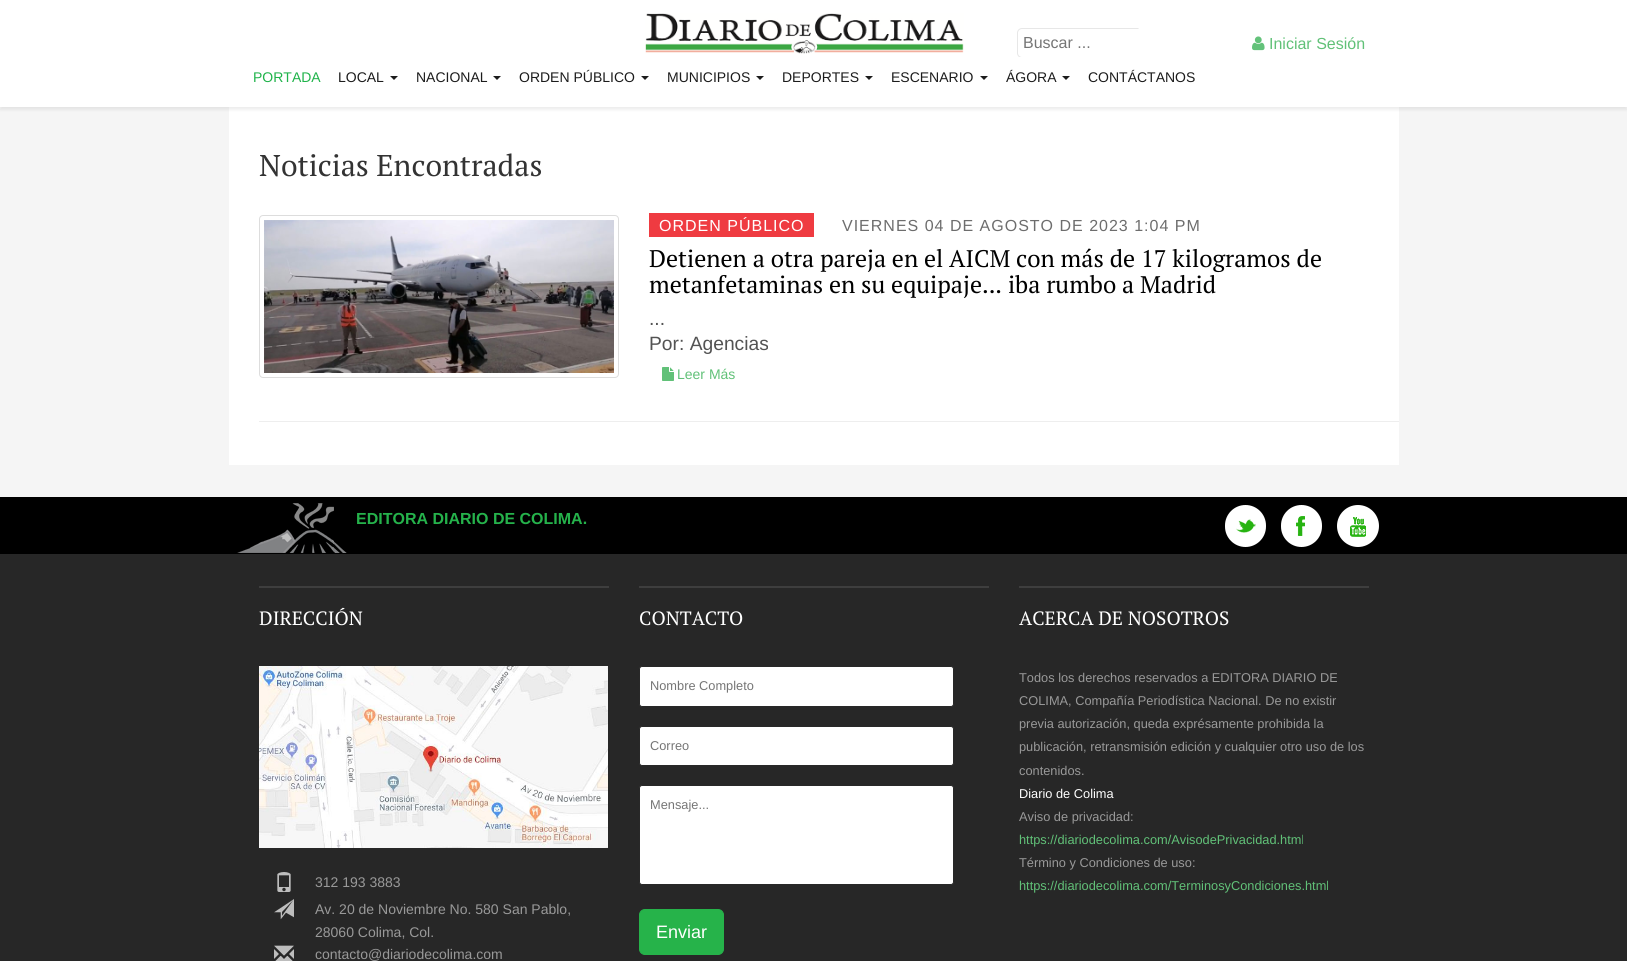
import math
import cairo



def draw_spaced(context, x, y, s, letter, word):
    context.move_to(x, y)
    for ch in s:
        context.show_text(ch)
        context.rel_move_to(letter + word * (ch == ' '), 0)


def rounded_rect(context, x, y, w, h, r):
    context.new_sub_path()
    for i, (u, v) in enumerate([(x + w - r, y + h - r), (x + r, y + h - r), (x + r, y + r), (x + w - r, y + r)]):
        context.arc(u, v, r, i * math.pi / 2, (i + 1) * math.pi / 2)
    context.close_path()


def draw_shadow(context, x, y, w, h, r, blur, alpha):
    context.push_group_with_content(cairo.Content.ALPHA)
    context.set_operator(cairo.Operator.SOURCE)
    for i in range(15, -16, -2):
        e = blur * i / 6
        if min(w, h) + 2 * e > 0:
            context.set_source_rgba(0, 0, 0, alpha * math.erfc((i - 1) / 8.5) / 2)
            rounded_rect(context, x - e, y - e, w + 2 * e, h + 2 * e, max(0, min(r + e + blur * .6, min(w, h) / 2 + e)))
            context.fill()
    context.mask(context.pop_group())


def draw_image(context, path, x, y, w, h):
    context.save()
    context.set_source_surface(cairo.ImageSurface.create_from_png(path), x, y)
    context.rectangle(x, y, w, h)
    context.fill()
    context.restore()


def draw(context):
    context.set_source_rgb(1, 1, 1)
    context.paint()
    context.set_source_rgb(245 / 255, 245 / 255, 245 / 255)
    context.rectangle(0, 107, 1627, 390)
    context.fill()
    context.set_source_rgb(1, 1, 1)
    context.rectangle(229, 107, 1170, 358)
    context.fill()
    context.set_source_rgb(0, 0, 0)
    draw_shadow(context, 0, 5, 1627, 105, 0, 1.5, 0.07)
    context.set_source_rgb(1, 1, 1)
    context.rectangle(0, 3, 1627, 104)
    context.fill()
    draw_image(context, "images/1.png", 645, 13, 319, 41)
    context.save()
    context.rectangle(229, 3, 1151, 54)
    context.clip()
    rounded_rect(context, 1017.5, 28.5, 160, 29, 4.5)
    context.set_source_rgb(231 / 255, 231 / 255, 231 / 255)
    context.set_line_width(1)
    context.stroke()
    context.restore()
    context.new_path()
    context.move_to(1140, 28)
    context.line_to(1176, 28)
    context.curve_to(1177, 28, 1178, 29, 1178, 30)
    context.line_to(1178, 57)
    context.line_to(1138, 57)
    context.line_to(1138, 30)
    context.curve_to(1138, 29, 1139, 28, 1140, 28)
    context.close_path()
    context.fill()
    context.save()
    context.rectangle(229, 3, 1151, 54)
    context.clip()
    rounded_rect(context, 1138.5, 28.5, 39, 39, 1.5)
    context.set_line_width(1)
    context.stroke()
    context.restore()
    draw_image(context, "images/2.png", 1252, 36, 13, 15)
    context.set_source_rgb(28 / 255, 28 / 255, 28 / 255)
    context.new_path()
    context.move_to(390, 76)
    context.line_to(398, 76)
    context.line_to(394, 80)
    context.close_path()
    context.fill()
    context.new_path()
    context.move_to(493, 76)
    context.line_to(501, 76)
    context.line_to(497, 80)
    context.close_path()
    context.fill()
    context.new_path()
    context.move_to(641, 76)
    context.line_to(649, 76)
    context.line_to(645, 80)
    context.close_path()
    context.fill()
    context.new_path()
    context.move_to(756, 76)
    context.line_to(764, 76)
    context.line_to(760, 80)
    context.close_path()
    context.fill()
    context.new_path()
    context.move_to(865, 76)
    context.line_to(873, 76)
    context.line_to(869, 80)
    context.close_path()
    context.fill()
    context.new_path()
    context.move_to(980, 76)
    context.line_to(988, 76)
    context.line_to(984, 80)
    context.close_path()
    context.fill()
    context.new_path()
    context.move_to(1062, 76)
    context.line_to(1070, 76)
    context.line_to(1066, 80)
    context.close_path()
    context.fill()
    rounded_rect(context, 259.5, 215.5, 359, 162, 3.5)
    context.set_source_rgb(221 / 255, 221 / 255, 221 / 255)
    context.set_line_width(1)
    context.stroke()
    draw_image(context, "images/3.png", 264, 220, 350, 153)
    context.set_source_rgb(239 / 255, 59 / 255, 65 / 255)
    context.rectangle(649, 213, 165, 24)
    context.fill()
    draw_image(context, "images/4.png", 662, 367, 12, 14)
    context.set_source_rgb(238 / 255, 238 / 255, 238 / 255)
    context.rectangle(259, 421, 1140, 1)
    context.fill()
    context.set_source_rgb(0, 0, 0)
    context.rectangle(0, 497, 1627, 57)
    context.fill()
    draw_image(context, "images/5.png", 237, 503, 110, 50)
    context.set_source_rgb(1, 1, 1)
    rounded_rect(context, 1225, 505, 41, 42, 20.5)
    context.fill()
    draw_image(context, "images/6.png", 1236, 519, 20, 14)
    rounded_rect(context, 1281, 505, 41, 42, 20.5)
    context.fill()
    draw_image(context, "images/7.png", 1296, 516, 9, 20)
    context.arc(1358, 526, 21, 0, 2 * math.pi)
    context.fill()
    draw_image(context, "images/8.png", 1350, 517, 16, 20)
    context.set_source_rgb(39 / 255, 39 / 255, 39 / 255)
    context.rectangle(0, 554, 1627, 407)
    context.fill()
    context.set_source_rgb(62 / 255, 62 / 255, 62 / 255)
    context.rectangle(259, 586, 350, 2)
    context.fill()
    draw_image(context, "images/9.png", 259, 666, 349, 182)
    draw_image(context, "images/10.png", 277, 872, 14, 20)
    draw_image(context, "images/11.png", 274, 899, 20, 21)
    draw_image(context, "images/12.png", 274, 945, 20, 16)
    context.rectangle(639, 586, 350, 2)
    context.fill()
    context.set_source_rgb(1, 1, 1)
    rounded_rect(context, 639.5, 666.5, 314, 40, 2.5)
    context.fill_preserve()
    context.set_source_rgb(40 / 255, 40 / 255, 40 / 255)
    context.stroke()
    context.set_source_rgb(1, 1, 1)
    rounded_rect(context, 639.5, 726.5, 314, 39, 2.5)
    context.fill_preserve()
    context.set_source_rgb(40 / 255, 40 / 255, 40 / 255)
    context.stroke()
    context.set_source_rgb(1, 1, 1)
    rounded_rect(context, 639.5, 785.5, 314, 99, 2.5)
    context.fill_preserve()
    context.set_source_rgb(40 / 255, 40 / 255, 40 / 255)
    context.stroke()
    context.set_source_rgb(38 / 255, 179 / 255, 74 / 255)
    rounded_rect(context, 639.5, 909.5, 84, 45, 5.5)
    context.fill_preserve()
    context.stroke()
    context.set_source_rgb(62 / 255, 62 / 255, 62 / 255)
    context.rectangle(1019, 586, 350, 2)
    context.fill()
    context.select_font_face("Liberation Sans")
    context.set_font_size(16)
    context.set_source_rgb(117 / 255, 117 / 255, 117 / 255)
    context.move_to(1023, 48)
    context.show_text("Buscar ...")
    context.set_source_rgb(97 / 255, 193 / 255, 120 / 255)
    context.move_to(1269, 49)
    context.show_text("Iniciar Sesión")
    context.set_font_size(14)
    context.set_source_rgb(31 / 255, 179 / 255, 74 / 255)
    context.move_to(253, 82)
    context.show_text("PORTADA")
    context.set_source_rgb(28 / 255, 28 / 255, 28 / 255)
    context.move_to(338, 82)
    context.show_text("LOCAL")
    context.move_to(416, 82)
    context.show_text("NACIONAL")
    context.move_to(519, 82)
    context.show_text("ORDEN PÚBLICO")
    context.move_to(667, 82)
    context.show_text("MUNICIPIOS")
    context.move_to(782, 82)
    context.show_text("DEPORTES")
    context.move_to(891, 82)
    context.show_text("ESCENARIO")
    context.move_to(1006, 82)
    context.show_text("ÁGORA")
    context.move_to(1088, 82)
    context.show_text("CONTÁCTANOS")
    context.select_font_face("PT Serif")
    context.set_font_size(30)
    context.set_source_rgb(51 / 255, 51 / 255, 51 / 255)
    context.move_to(259, 176)
    context.show_text("Noticias Encontradas")
    context.select_font_face("Liberation Sans")
    context.set_font_size(16)
    context.set_source_rgb(1, 1, 1)
    draw_spaced(context, 659, 231, "ORDEN PÚBLICO", 1, 0)
    context.set_source_rgb(109 / 255, 109 / 255, 109 / 255)
    draw_spaced(context, 842, 231, "VIERNES 04 DE AGOSTO DE 2023 1:04 PM", 1, 0)
    context.select_font_face("PT Serif")
    context.set_font_size(24)
    context.set_source_rgb(0, 0, 0)
    context.move_to(649, 267)
    context.show_text("Detienen a otra pareja en el AICM con más de 17 kilogramos de")
    context.move_to(649, 293)
    context.show_text("metanfetaminas en su equipaje... iba rumbo a Madrid")
    context.select_font_face("Liberation Sans")
    context.set_font_size(19.25)
    context.set_source_rgb(83 / 255, 83 / 255, 83 / 255)
    context.move_to(649, 325)
    context.show_text("...")
    context.move_to(649, 350)
    context.show_text("Por: Agencias")
    context.set_font_size(14)
    context.set_source_rgb(97 / 255, 193 / 255, 120 / 255)
    context.move_to(677, 379)
    context.show_text("Leer Más")
    context.select_font_face("Liberation Sans", cairo.FontSlant.NORMAL, cairo.FontWeight.BOLD)
    context.set_font_size(16)
    context.set_source_rgb(37 / 255, 178 / 255, 75 / 255)
    context.move_to(356, 524)
    context.show_text("EDITORA DIARIO DE COLIMA.")
    context.select_font_face("PT Serif")
    context.set_font_size(19.25)
    context.set_source_rgb(1, 1, 1)
    context.move_to(259, 625)
    context.show_text("DIRECCIÓN")
    context.select_font_face("Liberation Sans")
    context.set_font_size(14)
    context.set_source_rgb(153 / 255, 153 / 255, 153 / 255)
    context.move_to(315, 887)
    context.show_text("312 193 3883")
    context.move_to(315, 914)
    context.show_text("Av. 20 de Noviembre No. 580 San Pablo,")
    context.move_to(315, 937)
    context.show_text("28060 Colima, Col.")
    context.move_to(315, 959)
    context.show_text("contacto@diariodecolima.com")
    context.select_font_face("PT Serif")
    context.set_font_size(19.25)
    context.set_source_rgb(1, 1, 1)
    context.move_to(639, 625)
    context.show_text("CONTACTO")
    context.select_font_face("Liberation Sans")
    context.set_font_size(12.8)
    context.set_source_rgb(117 / 255, 117 / 255, 117 / 255)
    context.move_to(650, 690)
    context.show_text("Nombre Completo")
    context.move_to(650, 750)
    context.show_text("Correo")
    context.move_to(650, 809)
    context.show_text("Mensaje...")
    context.set_font_size(18)
    context.set_source_rgb(1, 1, 1)
    context.move_to(656, 938)
    context.show_text("Enviar")
    context.select_font_face("PT Serif")
    context.set_font_size(19.25)
    context.move_to(1019, 625)
    context.show_text("ACERCA DE NOSOTROS")
    context.select_font_face("Liberation Sans")
    context.set_font_size(12.8)
    context.set_source_rgb(153 / 255, 153 / 255, 153 / 255)
    context.move_to(1019, 682)
    context.show_text("Todos los derechos reservados a EDITORA DIARIO DE")
    context.move_to(1019, 705)
    context.show_text("COLIMA, Compañía Periodística Nacional. De no existir")
    context.move_to(1019, 728)
    context.show_text("previa autorización, queda exprésamente prohibida la")
    context.move_to(1019, 751)
    context.show_text("publicación, retransmisión edición y cualquier otro uso de los")
    context.move_to(1019, 775)
    context.show_text("contenidos.")
    context.set_source_rgb(1, 1, 1)
    context.move_to(1019, 798)
    context.show_text("Diario de Colima")
    context.set_source_rgb(153 / 255, 153 / 255, 153 / 255)
    context.move_to(1019, 821)
    context.show_text("Aviso de privacidad:")
    context.set_source_rgb(97 / 255, 193 / 255, 120 / 255)
    context.move_to(1019, 844)
    context.show_text("https://diariodecolima.com/AvisodePrivacidad.html")
    context.set_source_rgb(153 / 255, 153 / 255, 153 / 255)
    context.move_to(1019, 867)
    context.show_text("Término y Condiciones de uso:")
    context.set_source_rgb(97 / 255, 193 / 255, 120 / 255)
    context.move_to(1019, 890)
    context.show_text("https://diariodecolima.com/TerminosyCondiciones.html")


surface = cairo.ImageSurface(cairo.Format.RGB24, 1627, 961)
context = cairo.Context(surface)
options = cairo.FontOptions()
options.set_hint_metrics(cairo.HintMetrics.OFF)
options.set_hint_style(cairo.HintStyle.NONE)
context.set_font_options(options)
context.set_miter_limit(4)
draw(context)
surface.write_to_png("out.png")
